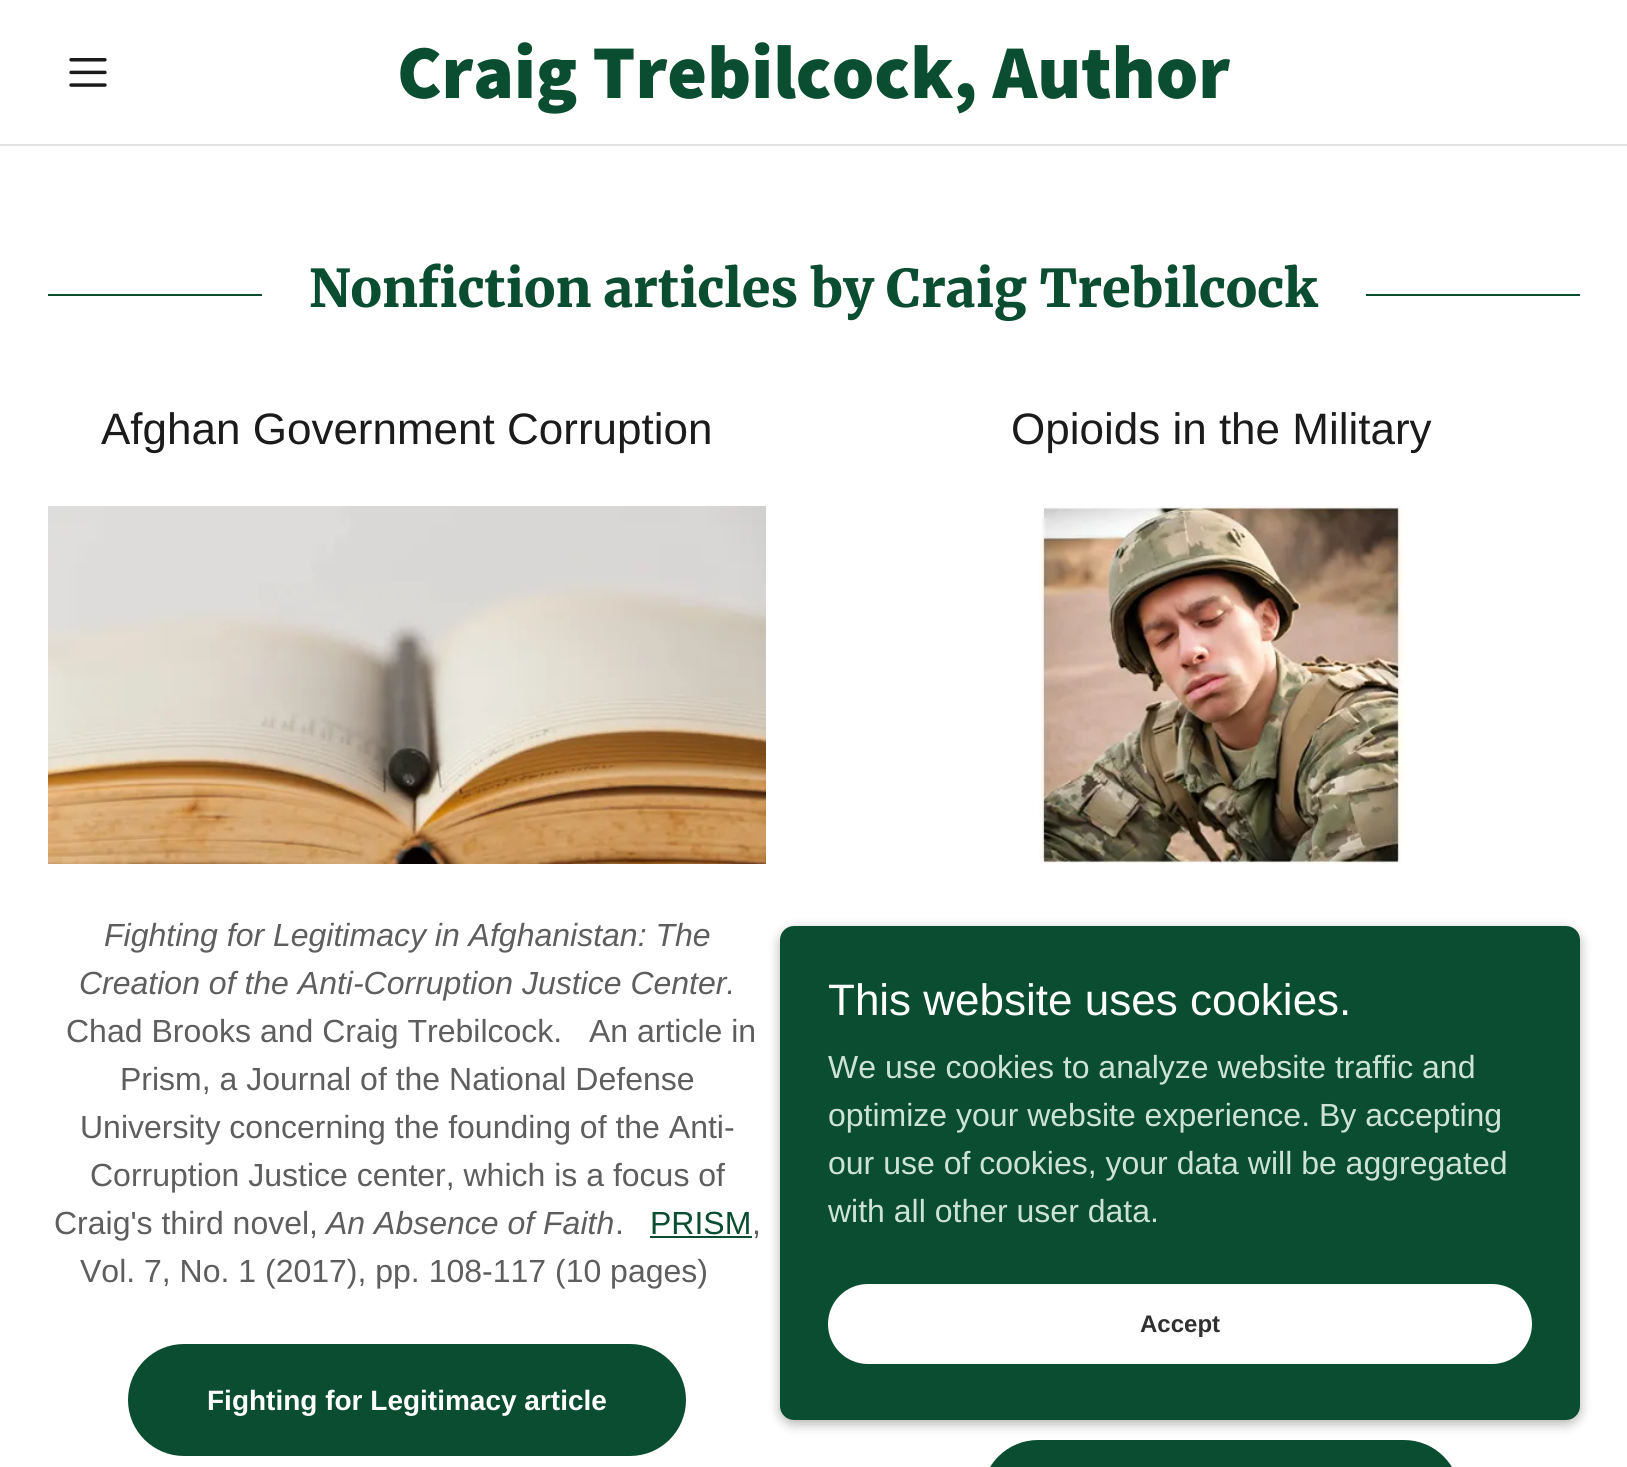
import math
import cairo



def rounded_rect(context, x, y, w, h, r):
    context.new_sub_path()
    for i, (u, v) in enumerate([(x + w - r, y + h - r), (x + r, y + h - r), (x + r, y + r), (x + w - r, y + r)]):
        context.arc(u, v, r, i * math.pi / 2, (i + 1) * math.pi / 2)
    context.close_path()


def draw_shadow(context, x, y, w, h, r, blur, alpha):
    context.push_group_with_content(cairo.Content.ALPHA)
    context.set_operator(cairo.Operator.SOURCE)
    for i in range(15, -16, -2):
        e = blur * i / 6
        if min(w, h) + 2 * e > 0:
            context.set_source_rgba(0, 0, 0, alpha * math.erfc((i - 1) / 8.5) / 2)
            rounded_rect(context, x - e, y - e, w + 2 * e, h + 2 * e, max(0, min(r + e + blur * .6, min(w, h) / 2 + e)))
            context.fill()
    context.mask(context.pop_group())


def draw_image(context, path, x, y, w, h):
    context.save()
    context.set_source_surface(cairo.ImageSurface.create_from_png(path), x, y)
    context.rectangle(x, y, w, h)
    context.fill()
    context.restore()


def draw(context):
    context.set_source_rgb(1, 1, 1)
    context.paint()
    draw_image(context, "images/1.png", 69, 58, 38, 29)
    context.set_source_rgb(226 / 255, 226 / 255, 226 / 255)
    context.rectangle(0, 144, 1627, 2)
    context.fill()
    context.set_source_rgb(11 / 255, 77 / 255, 48 / 255)
    context.rectangle(48, 294, 214, 2)
    context.fill()
    context.rectangle(1366, 294, 214, 2)
    context.fill()
    draw_image(context, "images/2.png", 48, 506, 718, 358)
    context.rectangle(650, 1236, 102, 2)
    context.fill()
    rounded_rect(context, 128, 1344, 558, 112, 56)
    context.fill()
    draw_image(context, "images/3.png", 1039, 506, 366, 358)
    rounded_rect(context, 982, 1440, 478, 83, 56)
    context.fill()
    context.set_source_rgb(0, 0, 0)
    draw_shadow(context, 780, 930, 800, 494, 14, 6, 0.3)
    context.set_source_rgb(11 / 255, 77 / 255, 48 / 255)
    rounded_rect(context, 780, 926, 800, 494, 14)
    context.fill()
    context.set_source_rgb(1, 1, 1)
    rounded_rect(context, 828, 1284, 704, 80, 40)
    context.fill()
    context.select_font_face("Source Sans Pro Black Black")
    context.set_font_size(76)
    context.set_source_rgb(11 / 255, 77 / 255, 48 / 255)
    context.move_to(397, 98)
    context.show_text("Craig Trebilcock, Author")
    context.select_font_face("Merriweather Light")
    context.set_font_size(52)
    context.move_to(309, 307)
    context.show_text("Nonfiction articles by Craig Trebilcock")
    context.select_font_face("Liberation Sans")
    context.set_font_size(44)
    context.set_source_rgb(27 / 255, 27 / 255, 27 / 255)
    context.move_to(101, 444)
    context.show_text("Afghan Government Corruption")
    context.select_font_face("Liberation Sans", cairo.FontSlant.ITALIC)
    context.set_font_size(32)
    context.set_source_rgb(94 / 255, 94 / 255, 94 / 255)
    context.move_to(104, 946)
    context.show_text("Fighting for Legitimacy in Afghanistan: The")
    context.move_to(79, 994)
    context.show_text("Creation of the Anti-Corruption Justice Center.")
    context.select_font_face("Liberation Sans")
    context.move_to(66, 1042)
    context.show_text("Chad Brooks and Craig Trebilcock.   An article in")
    context.move_to(120, 1090)
    context.show_text("Prism, a Journal of the National Defense")
    context.move_to(80, 1138)
    context.show_text("University concerning the founding of the Anti-")
    context.move_to(90, 1186)
    context.show_text("Corruption Justice center, which is a focus of")
    context.move_to(54, 1234)
    context.show_text("Craig's third novel,")
    context.select_font_face("Liberation Sans", cairo.FontSlant.ITALIC)
    context.move_to(326, 1234)
    context.show_text("An Absence of Faith")
    context.select_font_face("Liberation Sans")
    context.move_to(615, 1234)
    context.show_text(".")
    context.set_source_rgb(11 / 255, 77 / 255, 48 / 255)
    context.move_to(650, 1234)
    context.show_text("PRISM")
    context.set_source_rgb(94 / 255, 94 / 255, 94 / 255)
    context.move_to(752, 1234)
    context.show_text(",")
    context.move_to(80, 1282)
    context.show_text("Vol. 7, No. 1 (2017), pp. 108-117 (10 pages)")
    context.select_font_face("Liberation Sans", cairo.FontSlant.NORMAL, cairo.FontWeight.BOLD)
    context.set_font_size(28)
    context.set_source_rgb(1, 1, 1)
    context.move_to(207, 1410)
    context.show_text("Fighting for Legitimacy article")
    context.select_font_face("Liberation Sans")
    context.set_font_size(44)
    context.set_source_rgb(27 / 255, 27 / 255, 27 / 255)
    context.move_to(1011, 444)
    context.show_text("Opioids in the Military")
    context.set_source_rgb(1, 1, 1)
    context.move_to(828, 1015)
    context.show_text("This website uses cookies.")
    context.set_font_size(32)
    context.set_source_rgb(205 / 255, 227 / 255, 213 / 255)
    context.move_to(828, 1078)
    context.show_text("We use cookies to analyze website traffic and")
    context.move_to(828, 1126)
    context.show_text("optimize your website experience. By accepting")
    context.move_to(828, 1174)
    context.show_text("our use of cookies, your data will be aggregated")
    context.move_to(828, 1222)
    context.show_text("with all other user data.")
    context.select_font_face("Liberation Sans", cairo.FontSlant.NORMAL, cairo.FontWeight.BOLD)
    context.set_font_size(24)
    context.set_source_rgb(48 / 255, 48 / 255, 48 / 255)
    context.move_to(1140, 1332)
    context.show_text("Accept")


surface = cairo.ImageSurface(cairo.Format.RGB24, 1627, 1467)
context = cairo.Context(surface)
options = cairo.FontOptions()
options.set_hint_metrics(cairo.HintMetrics.OFF)
options.set_hint_style(cairo.HintStyle.NONE)
context.set_font_options(options)
context.set_miter_limit(4)
draw(context)
surface.write_to_png("out.png")
